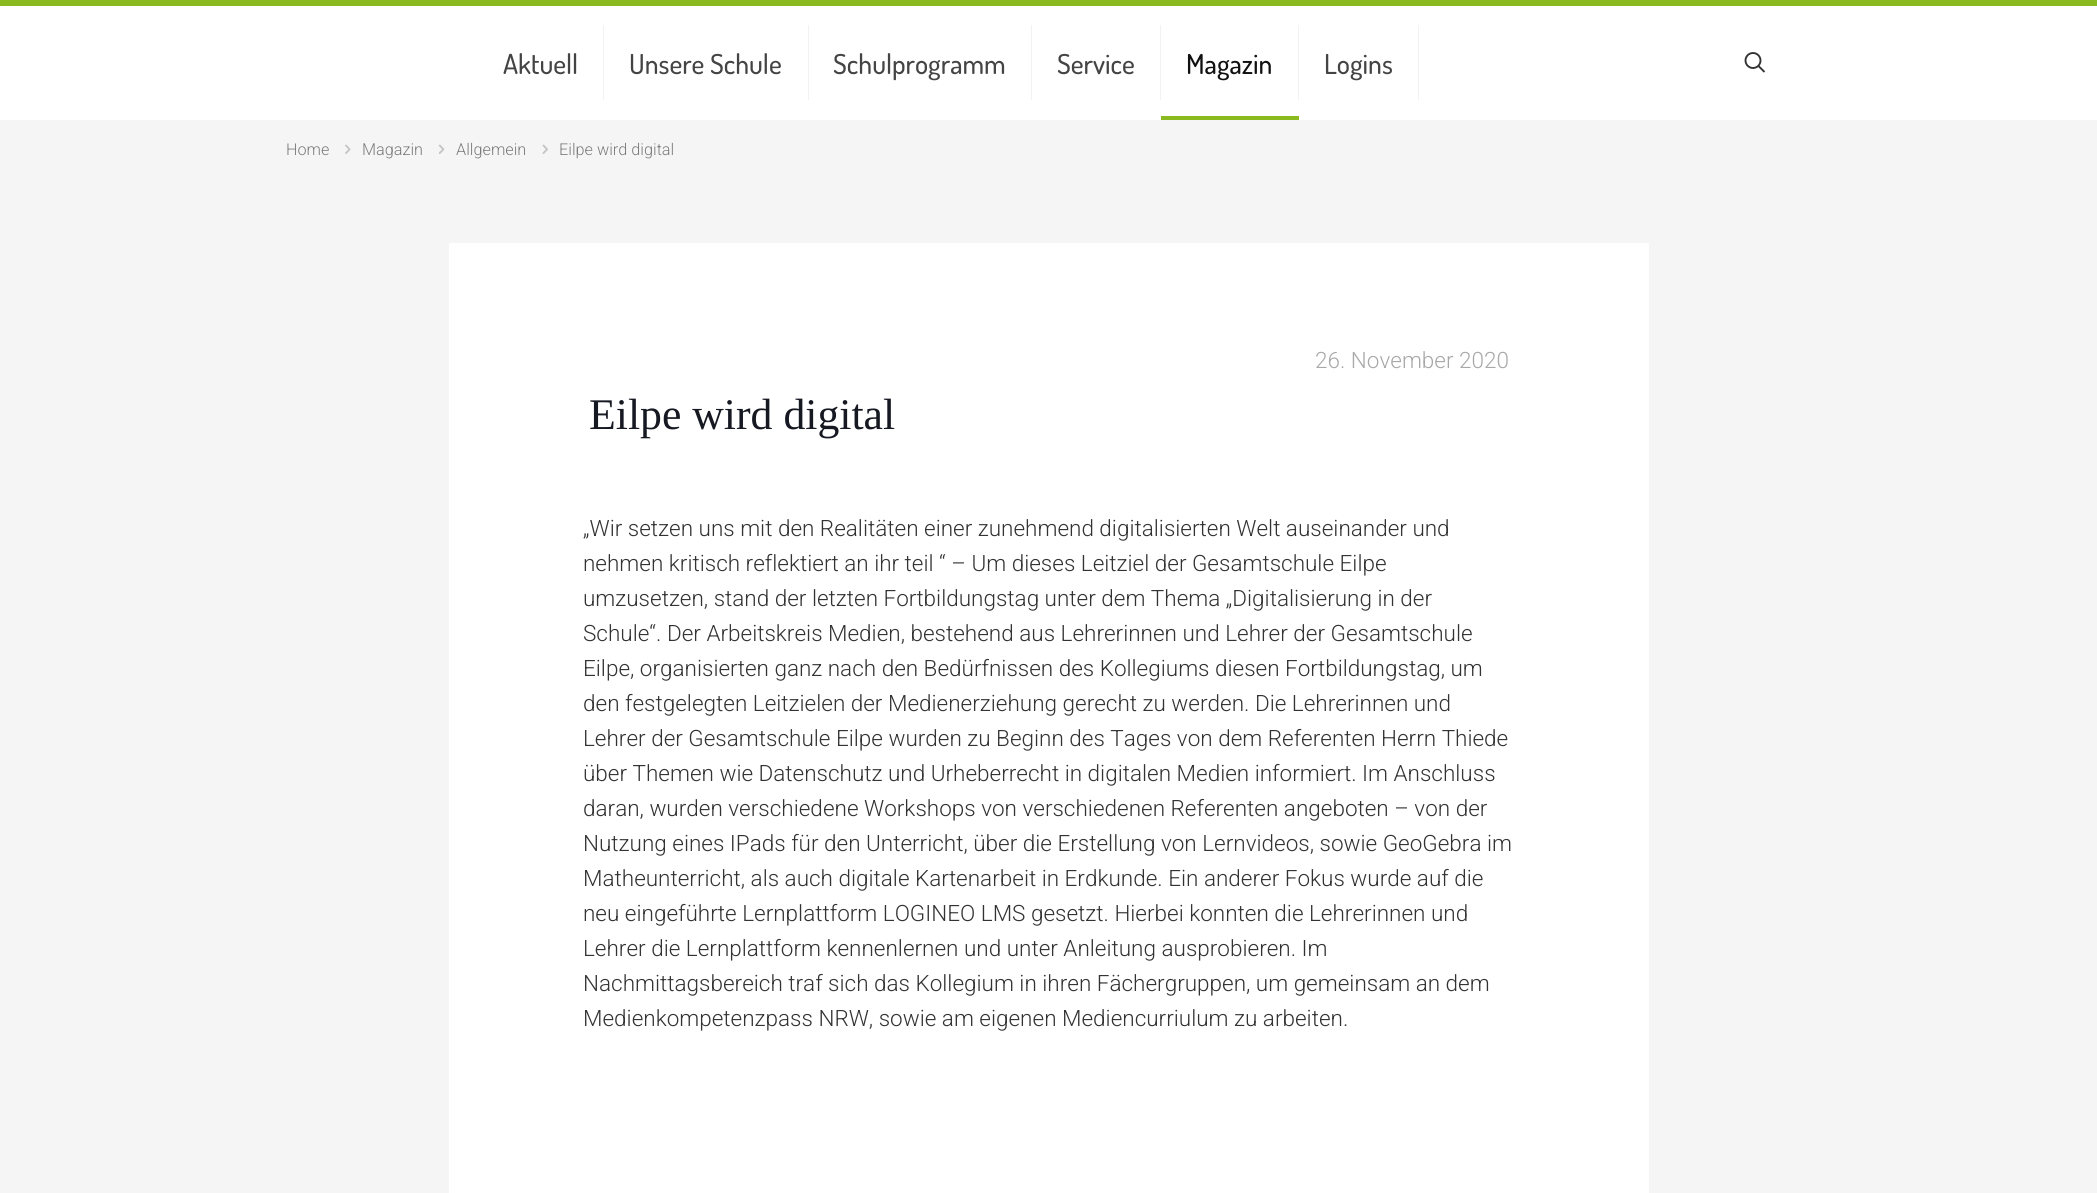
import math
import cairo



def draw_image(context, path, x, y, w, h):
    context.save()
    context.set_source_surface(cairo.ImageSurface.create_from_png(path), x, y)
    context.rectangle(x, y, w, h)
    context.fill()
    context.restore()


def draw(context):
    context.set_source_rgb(1, 1, 1)
    context.paint()
    context.set_source_rgb(139 / 255, 185 / 255, 32 / 255)
    context.rectangle(0, 0, 2097, 6)
    context.fill()
    context.set_source_rgb(242 / 255, 242 / 255, 242 / 255)
    context.rectangle(603, 25, 1, 75)
    context.fill()
    context.rectangle(808, 25, 1, 75)
    context.fill()
    context.rectangle(1031, 25, 1, 75)
    context.fill()
    context.rectangle(1160, 25, 1, 75)
    context.fill()
    context.rectangle(1298, 25, 1, 75)
    context.fill()
    context.set_source_rgb(139 / 255, 185 / 255, 32 / 255)
    context.rectangle(1161, 116, 138, 4)
    context.fill()
    context.set_source_rgb(242 / 255, 242 / 255, 242 / 255)
    context.rectangle(1418, 25, 1, 75)
    context.fill()
    context.arc(1753, 60.5, 7.5, 0, 2 * math.pi)
    context.set_source_rgb(51 / 255, 51 / 255, 51 / 255)
    context.set_line_width(1.9)
    context.stroke()
    context.new_path()
    context.move_to(1758, 65.5)
    context.line_to(1764.5, 72)
    context.stroke()
    context.set_source_rgb(245 / 255, 245 / 255, 245 / 255)
    context.rectangle(0, 120, 2097, 1073)
    context.fill()
    draw_image(context, "images/1.png", 345, 144, 6, 10)
    draw_image(context, "images/2.png", 438, 144, 7, 10)
    draw_image(context, "images/3.png", 542, 144, 6, 10)
    context.set_source_rgb(1, 1, 1)
    context.rectangle(449, 243, 1200, 950)
    context.fill()
    context.select_font_face("Dosis Medium")
    context.set_font_size(27.5)
    context.set_source_rgb(68 / 255, 68 / 255, 68 / 255)
    context.move_to(503, 74)
    context.show_text("Aktuell")
    context.move_to(629, 74)
    context.show_text("Unsere Schule")
    context.move_to(833, 74)
    context.show_text("Schulprogramm")
    context.move_to(1057, 74)
    context.show_text("Service")
    context.set_source_rgb(17 / 255, 17 / 255, 17 / 255)
    context.move_to(1186, 74)
    context.show_text("Magazin")
    context.set_source_rgb(68 / 255, 68 / 255, 68 / 255)
    context.move_to(1324, 74)
    context.show_text("Logins")
    context.select_font_face("Roboto Light")
    context.set_font_size(16.25)
    context.set_source_rgb(124 / 255, 124 / 255, 124 / 255)
    context.move_to(286, 155)
    context.show_text("Home")
    context.move_to(362, 155)
    context.show_text("Magazin")
    context.move_to(456, 155)
    context.show_text("Allgemein")
    context.move_to(559, 155)
    context.show_text("Eilpe wird digital")
    context.set_font_size(22.5)
    context.set_source_rgb(168 / 255, 168 / 255, 168 / 255)
    context.move_to(1315, 368)
    context.show_text("26. November 2020")
    context.select_font_face("Liberation Serif")
    context.set_font_size(43.75)
    context.set_source_rgb(22 / 255, 25 / 255, 34 / 255)
    context.move_to(589, 429)
    context.show_text("Eilpe wird digital")
    context.select_font_face("Roboto Light")
    context.set_font_size(22.5)
    context.set_source_rgb(51 / 255, 51 / 255, 51 / 255)
    context.move_to(583, 536)
    context.show_text("„Wir setzen uns mit den Realitäten einer zunehmend digitalisierten Welt auseinander und")
    context.move_to(583, 571)
    context.show_text("nehmen kritisch reflektiert an ihr teil “ – Um dieses Leitziel der Gesamtschule Eilpe")
    context.move_to(583, 606)
    context.show_text("umzusetzen, stand der letzten Fortbildungstag unter dem Thema „Digitalisierung in der")
    context.move_to(583, 641)
    context.show_text("Schule“. Der Arbeitskreis Medien, bestehend aus Lehrerinnen und Lehrer der Gesamtschule")
    context.move_to(583, 676)
    context.show_text("Eilpe, organisierten ganz nach den Bedürfnissen des Kollegiums diesen Fortbildungstag, um")
    context.move_to(583, 711)
    context.show_text("den festgelegten Leitzielen der Medienerziehung gerecht zu werden. Die Lehrerinnen und")
    context.move_to(583, 746)
    context.show_text("Lehrer der Gesamtschule Eilpe wurden zu Beginn des Tages von dem Referenten Herrn Thiede")
    context.move_to(583, 781)
    context.show_text("über Themen wie Datenschutz und Urheberrecht in digitalen Medien informiert. Im Anschluss")
    context.move_to(583, 816)
    context.show_text("daran, wurden verschiedene Workshops von verschiedenen Referenten angeboten – von der")
    context.move_to(583, 851)
    context.show_text("Nutzung eines IPads für den Unterricht, über die Erstellung von Lernvideos, sowie GeoGebra im")
    context.move_to(583, 886)
    context.show_text("Matheunterricht, als auch digitale Kartenarbeit in Erdkunde. Ein anderer Fokus wurde auf die")
    context.move_to(583, 921)
    context.show_text("neu eingeführte Lernplattform LOGINEO LMS gesetzt. Hierbei konnten die Lehrerinnen und")
    context.move_to(583, 956)
    context.show_text("Lehrer die Lernplattform kennenlernen und unter Anleitung ausprobieren. Im")
    context.move_to(583, 991)
    context.show_text("Nachmittagsbereich traf sich das Kollegium in ihren Fächergruppen, um gemeinsam an dem")
    context.move_to(583, 1026)
    context.show_text("Medienkompetenzpass NRW, sowie am eigenen Mediencurriulum zu arbeiten.")


surface = cairo.ImageSurface(cairo.Format.RGB24, 2097, 1193)
context = cairo.Context(surface)
options = cairo.FontOptions()
options.set_hint_metrics(cairo.HintMetrics.OFF)
options.set_hint_style(cairo.HintStyle.NONE)
context.set_font_options(options)
context.set_miter_limit(4)
draw(context)
surface.write_to_png("out.png")
